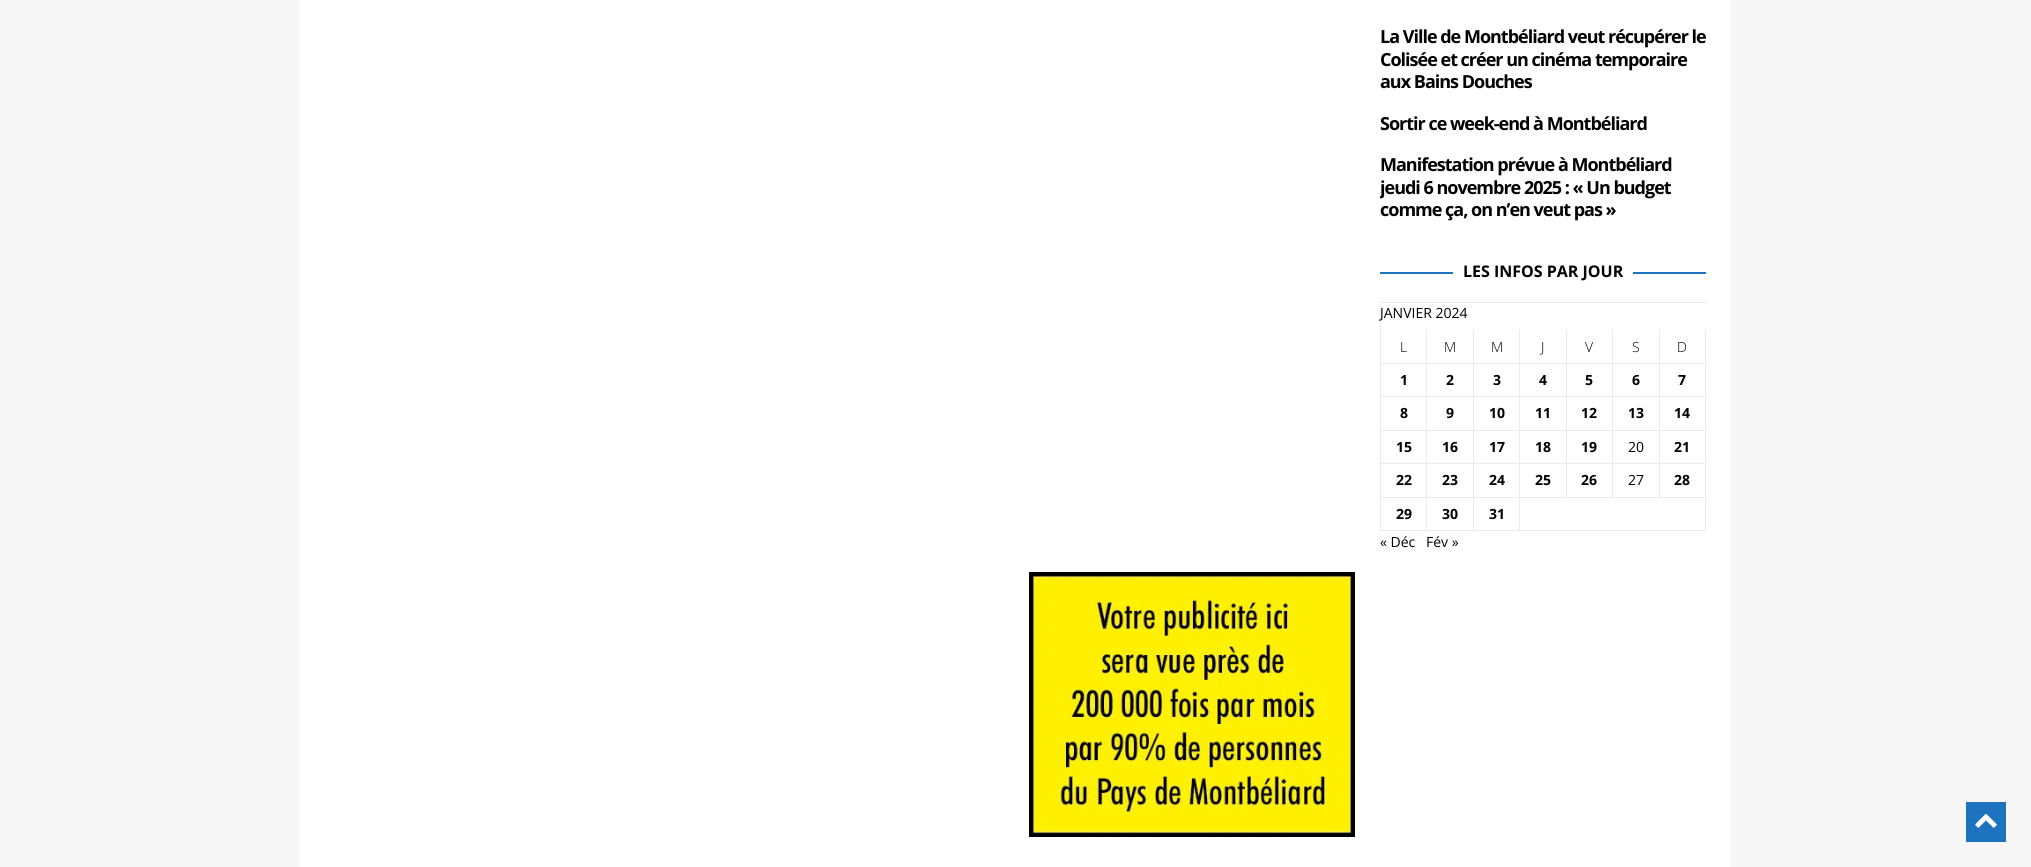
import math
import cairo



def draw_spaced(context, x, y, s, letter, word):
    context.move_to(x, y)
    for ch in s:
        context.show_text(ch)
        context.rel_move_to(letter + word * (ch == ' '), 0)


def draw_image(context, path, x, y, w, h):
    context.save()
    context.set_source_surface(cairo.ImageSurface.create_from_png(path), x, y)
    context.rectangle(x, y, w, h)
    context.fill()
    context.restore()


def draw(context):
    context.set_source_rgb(247 / 255, 247 / 255, 247 / 255)
    context.paint()
    context.set_source_rgb(1, 1, 1)
    context.rectangle(300, 0, 1431, 867)
    context.fill()
    context.set_source_rgb(30 / 255, 115 / 255, 190 / 255)
    context.rectangle(1380, 272, 326, 2)
    context.fill()
    context.set_source_rgb(1, 1, 1)
    context.rectangle(1453, 272, 180, 2)
    context.fill()
    context.set_source_rgb(235 / 255, 235 / 255, 235 / 255)
    context.rectangle(1380, 302, 326, 1)
    context.fill()
    context.rectangle(1380, 302, 1, 229)
    context.fill()
    context.rectangle(1705, 330, 1, 201)
    context.fill()
    context.rectangle(1659, 497, 47, 1)
    context.fill()
    context.rectangle(1659, 463, 1, 35)
    context.fill()
    context.rectangle(1659, 463, 47, 1)
    context.fill()
    context.rectangle(1659, 430, 1, 34)
    context.fill()
    context.rectangle(1659, 430, 47, 1)
    context.fill()
    context.rectangle(1659, 396, 1, 35)
    context.fill()
    context.rectangle(1659, 396, 47, 1)
    context.fill()
    context.rectangle(1659, 363, 1, 34)
    context.fill()
    context.rectangle(1659, 363, 47, 1)
    context.fill()
    context.rectangle(1659, 330, 1, 34)
    context.fill()
    context.rectangle(1612, 497, 48, 1)
    context.fill()
    context.rectangle(1612, 463, 1, 35)
    context.fill()
    context.rectangle(1612, 463, 48, 1)
    context.fill()
    context.rectangle(1612, 430, 1, 34)
    context.fill()
    context.rectangle(1612, 430, 48, 1)
    context.fill()
    context.rectangle(1612, 396, 1, 35)
    context.fill()
    context.rectangle(1612, 396, 48, 1)
    context.fill()
    context.rectangle(1612, 363, 1, 34)
    context.fill()
    context.rectangle(1612, 363, 48, 1)
    context.fill()
    context.rectangle(1612, 330, 1, 34)
    context.fill()
    context.rectangle(1566, 497, 47, 1)
    context.fill()
    context.rectangle(1566, 463, 1, 35)
    context.fill()
    context.rectangle(1566, 463, 47, 1)
    context.fill()
    context.rectangle(1566, 430, 1, 34)
    context.fill()
    context.rectangle(1566, 430, 47, 1)
    context.fill()
    context.rectangle(1566, 396, 1, 35)
    context.fill()
    context.rectangle(1566, 396, 47, 1)
    context.fill()
    context.rectangle(1566, 363, 1, 34)
    context.fill()
    context.rectangle(1566, 363, 47, 1)
    context.fill()
    context.rectangle(1566, 330, 1, 34)
    context.fill()
    context.rectangle(1519, 530, 187, 1)
    context.fill()
    context.rectangle(1519, 497, 1, 34)
    context.fill()
    context.rectangle(1519, 497, 48, 1)
    context.fill()
    context.rectangle(1519, 463, 1, 35)
    context.fill()
    context.rectangle(1519, 463, 48, 1)
    context.fill()
    context.rectangle(1519, 430, 1, 34)
    context.fill()
    context.rectangle(1519, 430, 48, 1)
    context.fill()
    context.rectangle(1519, 396, 1, 35)
    context.fill()
    context.rectangle(1519, 396, 48, 1)
    context.fill()
    context.rectangle(1519, 363, 1, 34)
    context.fill()
    context.rectangle(1519, 363, 48, 1)
    context.fill()
    context.rectangle(1519, 330, 1, 34)
    context.fill()
    context.rectangle(1473, 530, 47, 1)
    context.fill()
    context.rectangle(1473, 497, 1, 34)
    context.fill()
    context.rectangle(1473, 497, 47, 1)
    context.fill()
    context.rectangle(1473, 463, 1, 35)
    context.fill()
    context.rectangle(1473, 463, 47, 1)
    context.fill()
    context.rectangle(1473, 430, 1, 34)
    context.fill()
    context.rectangle(1473, 430, 47, 1)
    context.fill()
    context.rectangle(1473, 396, 1, 35)
    context.fill()
    context.rectangle(1473, 396, 47, 1)
    context.fill()
    context.rectangle(1473, 363, 1, 34)
    context.fill()
    context.rectangle(1473, 363, 47, 1)
    context.fill()
    context.rectangle(1473, 330, 1, 34)
    context.fill()
    context.rectangle(1426, 530, 48, 1)
    context.fill()
    context.rectangle(1426, 497, 1, 34)
    context.fill()
    context.rectangle(1426, 497, 48, 1)
    context.fill()
    context.rectangle(1426, 463, 1, 35)
    context.fill()
    context.rectangle(1426, 463, 48, 1)
    context.fill()
    context.rectangle(1426, 430, 1, 34)
    context.fill()
    context.rectangle(1426, 430, 48, 1)
    context.fill()
    context.rectangle(1426, 396, 1, 35)
    context.fill()
    context.rectangle(1426, 396, 48, 1)
    context.fill()
    context.rectangle(1426, 363, 1, 34)
    context.fill()
    context.rectangle(1426, 363, 48, 1)
    context.fill()
    context.rectangle(1426, 330, 1, 34)
    context.fill()
    context.rectangle(1380, 363, 47, 1)
    context.fill()
    context.rectangle(1380, 396, 47, 1)
    context.fill()
    context.rectangle(1380, 430, 47, 1)
    context.fill()
    context.rectangle(1380, 463, 47, 1)
    context.fill()
    context.rectangle(1380, 497, 47, 1)
    context.fill()
    context.rectangle(1380, 530, 47, 1)
    context.fill()
    draw_image(context, "images/1.png", 1029, 572, 326, 265)
    context.set_source_rgb(30 / 255, 115 / 255, 190 / 255)
    context.rectangle(1966, 802, 40, 40)
    context.fill()
    draw_image(context, "images/2.png", 1975, 813, 22, 15)
    context.select_font_face("Open Sans", cairo.FontSlant.NORMAL, cairo.FontWeight.BOLD)
    context.set_font_size(18)
    context.set_source_rgb(0, 0, 0)
    draw_spaced(context, 1380, 43, "La Ville de Montbéliard veut récupérer le", -1, 0)
    draw_spaced(context, 1380, 66, "Colisée et créer un cinéma temporaire", -1, 0)
    draw_spaced(context, 1380, 88, "aux Bains Douches", -1, 0)
    draw_spaced(context, 1380, 130, "Sortir ce week-end à Montbéliard", -1, 0)
    draw_spaced(context, 1380, 171, "Manifestation prévue à Montbéliard", -1, 0)
    context.save()
    context.rectangle(1380, 0, 326, 236)
    context.clip()
    draw_spaced(context, 1380, 194, "jeudi 6 novembre 2025 : « Un budget", -1, 0)
    context.restore()
    draw_spaced(context, 1380, 216, "comme ça, on n’en veut pas »", -1, 0)
    context.set_font_size(16)
    context.move_to(1463, 277)
    context.show_text("LES INFOS PAR JOUR")
    context.select_font_face("Open Sans")
    context.set_font_size(14)
    context.move_to(1380, 318)
    context.show_text("JANVIER 2024")
    context.select_font_face("Open Sans Light")
    context.move_to(1400, 352)
    context.show_text("L")
    context.move_to(1444, 352)
    context.show_text("M")
    context.move_to(1491, 352)
    context.show_text("M")
    context.move_to(1541, 352)
    context.show_text("J")
    context.move_to(1585, 352)
    context.show_text("V")
    context.move_to(1632, 352)
    context.show_text("S")
    context.move_to(1677, 352)
    context.show_text("D")
    context.select_font_face("Open Sans", cairo.FontSlant.NORMAL, cairo.FontWeight.BOLD)
    context.move_to(1400, 385)
    context.show_text("1")
    context.move_to(1446, 385)
    context.show_text("2")
    context.move_to(1493, 385)
    context.show_text("3")
    context.move_to(1539, 385)
    context.show_text("4")
    context.move_to(1585, 385)
    context.show_text("5")
    context.move_to(1632, 385)
    context.show_text("6")
    context.move_to(1678, 385)
    context.show_text("7")
    context.move_to(1400, 418)
    context.show_text("8")
    context.move_to(1446, 418)
    context.show_text("9")
    context.move_to(1489, 418)
    context.show_text("10")
    context.move_to(1535, 418)
    context.show_text("11")
    context.move_to(1581, 418)
    context.show_text("12")
    context.move_to(1628, 418)
    context.show_text("13")
    context.move_to(1674, 418)
    context.show_text("14")
    context.move_to(1396, 452)
    context.show_text("15")
    context.move_to(1442, 452)
    context.show_text("16")
    context.move_to(1489, 452)
    context.show_text("17")
    context.move_to(1535, 452)
    context.show_text("18")
    context.move_to(1581, 452)
    context.show_text("19")
    context.select_font_face("Open Sans")
    context.move_to(1628, 452)
    context.show_text("20")
    context.select_font_face("Open Sans", cairo.FontSlant.NORMAL, cairo.FontWeight.BOLD)
    context.move_to(1674, 452)
    context.show_text("21")
    context.move_to(1396, 485)
    context.show_text("22")
    context.move_to(1442, 485)
    context.show_text("23")
    context.move_to(1489, 485)
    context.show_text("24")
    context.move_to(1535, 485)
    context.show_text("25")
    context.move_to(1581, 485)
    context.show_text("26")
    context.select_font_face("Open Sans")
    context.move_to(1628, 485)
    context.show_text("27")
    context.select_font_face("Open Sans", cairo.FontSlant.NORMAL, cairo.FontWeight.BOLD)
    context.move_to(1674, 485)
    context.show_text("28")
    context.move_to(1396, 519)
    context.show_text("29")
    context.move_to(1442, 519)
    context.show_text("30")
    context.move_to(1489, 519)
    context.show_text("31")
    context.select_font_face("Open Sans")
    context.move_to(1380, 547)
    context.show_text("« Déc")
    context.move_to(1426, 547)
    context.show_text("Fév »")


surface = cairo.ImageSurface(cairo.Format.RGB24, 2031, 867)
context = cairo.Context(surface)
options = cairo.FontOptions()
options.set_hint_metrics(cairo.HintMetrics.OFF)
options.set_hint_style(cairo.HintStyle.NONE)
context.set_font_options(options)
context.set_miter_limit(4)
draw(context)
surface.write_to_png("out.png")
